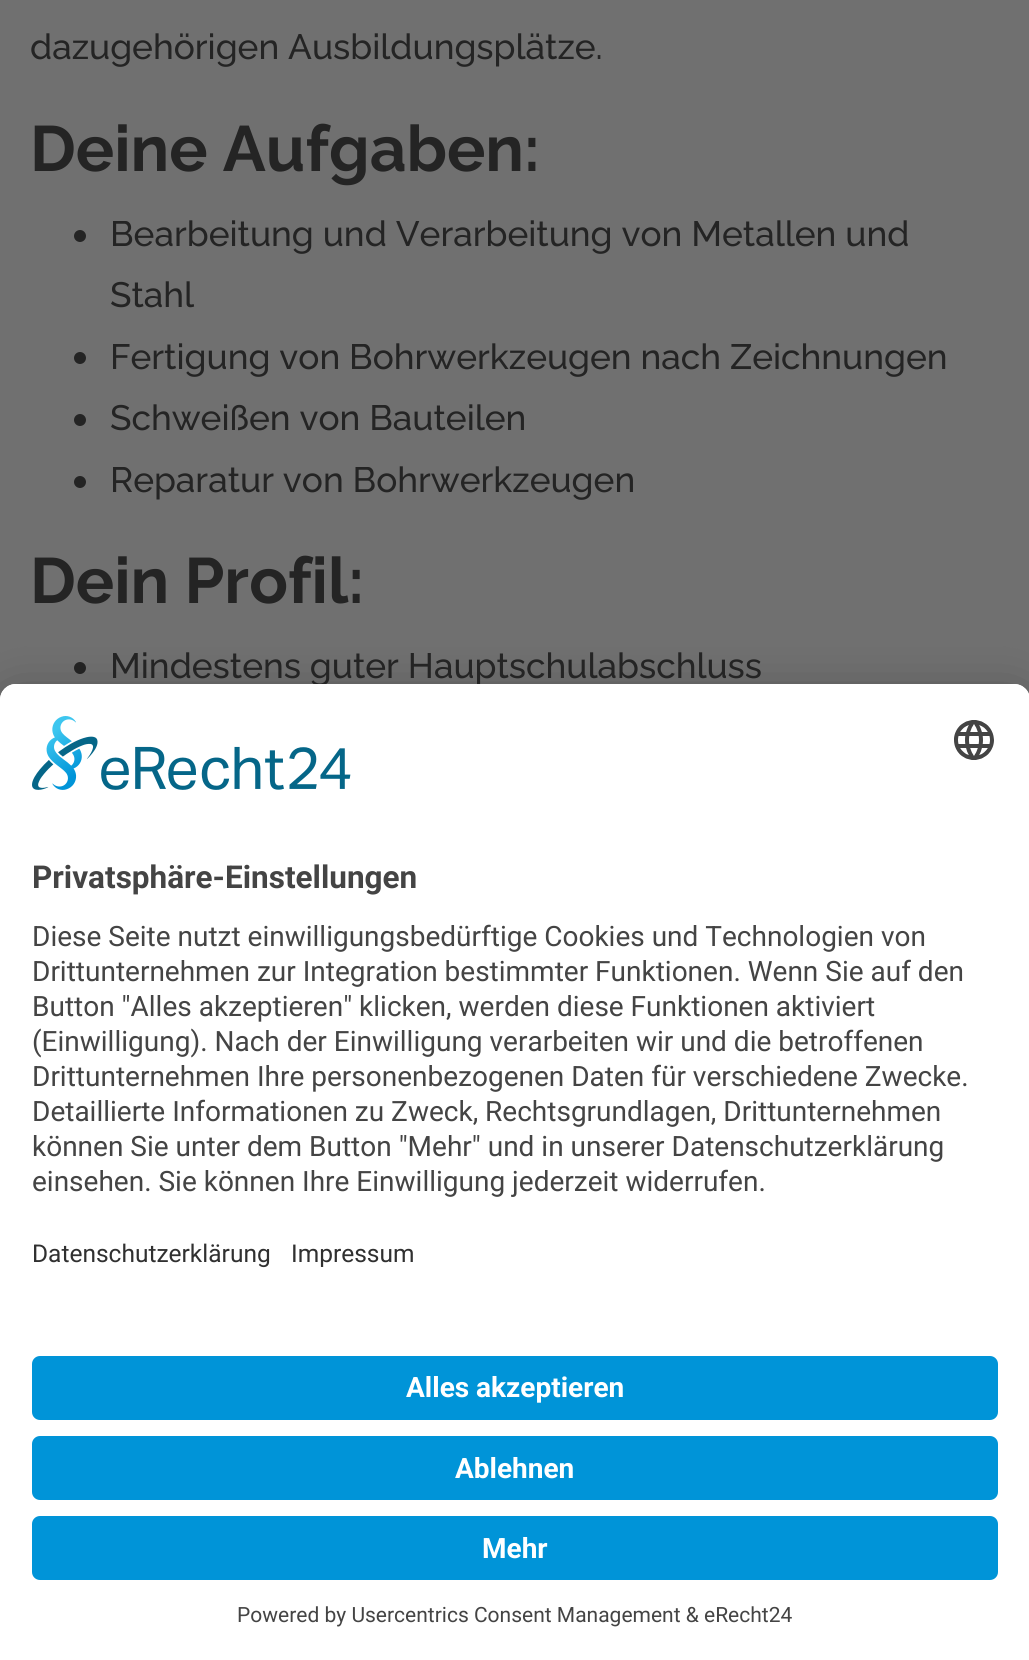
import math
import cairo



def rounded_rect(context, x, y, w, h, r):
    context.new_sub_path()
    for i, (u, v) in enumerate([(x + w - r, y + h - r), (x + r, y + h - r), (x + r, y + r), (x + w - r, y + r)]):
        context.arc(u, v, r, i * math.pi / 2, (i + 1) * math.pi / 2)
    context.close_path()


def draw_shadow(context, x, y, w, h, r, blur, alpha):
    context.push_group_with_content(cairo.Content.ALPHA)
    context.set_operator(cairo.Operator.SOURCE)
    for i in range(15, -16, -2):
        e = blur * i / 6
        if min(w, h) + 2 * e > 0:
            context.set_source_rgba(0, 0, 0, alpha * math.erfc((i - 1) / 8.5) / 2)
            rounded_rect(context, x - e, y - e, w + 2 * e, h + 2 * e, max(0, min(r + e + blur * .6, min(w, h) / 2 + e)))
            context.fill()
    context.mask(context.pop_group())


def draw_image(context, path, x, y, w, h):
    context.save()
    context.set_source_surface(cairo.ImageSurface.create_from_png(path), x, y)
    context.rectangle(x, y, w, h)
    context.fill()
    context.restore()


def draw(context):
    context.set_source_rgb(112 / 255, 112 / 255, 112 / 255)
    context.paint()
    context.set_source_rgb(36 / 255, 36 / 255, 36 / 255)
    context.arc(80, 236, 6, 0, 2 * math.pi)
    context.fill()
    context.arc(80, 358, 6, 0, 2 * math.pi)
    context.fill()
    context.arc(80, 420, 6, 0, 2 * math.pi)
    context.fill()
    context.arc(80, 482, 6, 0, 2 * math.pi)
    context.fill()
    context.arc(80, 668, 6, 0, 2 * math.pi)
    context.fill()
    context.set_source_rgb(0, 0, 0)
    draw_shadow(context, 0, 724, 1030, 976, 16, 28, 0.3)
    draw_shadow(context, 0, 694, 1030, 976, 16, 26, 0.22)
    context.select_font_face("Raleway Medium")
    context.set_font_size(35.2)
    context.set_source_rgb(36 / 255, 36 / 255, 36 / 255)
    context.move_to(30, 59)
    context.show_text("dazugehörigen Ausbildungsplätze.")
    context.select_font_face("Raleway", cairo.FontSlant.NORMAL, cairo.FontWeight.BOLD)
    context.set_font_size(64)
    context.move_to(30, 171)
    context.show_text("Deine Aufgaben:")
    context.select_font_face("Raleway Medium")
    context.set_font_size(35.2)
    context.move_to(110, 246)
    context.show_text("Bearbeitung und Verarbeitung von Metallen und")
    context.move_to(110, 307)
    context.show_text("Stahl")
    context.move_to(110, 369)
    context.show_text("Fertigung von Bohrwerkzeugen nach Zeichnungen")
    context.move_to(110, 430)
    context.show_text("Schweißen von Bauteilen")
    context.move_to(110, 492)
    context.show_text("Reparatur von Bohrwerkzeugen")
    context.select_font_face("Raleway", cairo.FontSlant.NORMAL, cairo.FontWeight.BOLD)
    context.set_font_size(64)
    context.move_to(30, 603)
    context.show_text("Dein Profil:")
    context.select_font_face("Raleway Medium")
    context.set_font_size(35.2)
    context.move_to(110, 678)
    context.show_text("Mindestens guter Hauptschulabschluss")
    context.set_source_rgb(1, 1, 1)
    context.new_path()
    context.move_to(16, 684)
    context.line_to(1014, 684)
    context.curve_to(1023, 684, 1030, 691, 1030, 700)
    context.line_to(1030, 1660)
    context.line_to(0, 1660)
    context.line_to(0, 700)
    context.curve_to(0, 691, 7, 684, 16, 684)
    context.close_path()
    context.fill()
    context.new_path()
    context.move_to(16, 684)
    context.line_to(1014, 684)
    context.curve_to(1023, 684, 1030, 691, 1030, 700)
    context.line_to(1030, 1332)
    context.line_to(0, 1332)
    context.line_to(0, 700)
    context.curve_to(0, 691, 7, 684, 16, 684)
    context.close_path()
    context.fill()
    draw_image(context, "images/1.png", 32, 716, 319, 74)
    draw_image(context, "images/2.png", 954, 720, 40, 40)
    context.select_font_face("Roboto", cairo.FontSlant.NORMAL, cairo.FontWeight.BOLD)
    context.set_font_size(31.5)
    context.set_source_rgb(68 / 255, 68 / 255, 68 / 255)
    context.move_to(32, 888)
    context.show_text("Privatsphäre-Einstellungen")
    context.select_font_face("Roboto")
    context.set_font_size(28)
    context.move_to(32, 946)
    context.show_text("Diese Seite nutzt einwilligungsbedürftige Cookies und Technologien von")
    context.move_to(32, 981)
    context.show_text("Drittunternehmen zur Integration bestimmter Funktionen. Wenn Sie auf den")
    context.move_to(32, 1016)
    context.show_text("Button \"Alles akzeptieren\" klicken, werden diese Funktionen aktiviert")
    context.move_to(32, 1051)
    context.show_text("(Einwilligung). Nach der Einwilligung verarbeiten wir und die betroffenen")
    context.move_to(32, 1086)
    context.show_text("Drittunternehmen Ihre personenbezogenen Daten für verschiedene Zwecke.")
    context.move_to(32, 1121)
    context.show_text("Detaillierte Informationen zu Zweck, Rechtsgrundlagen, Drittunternehmen")
    context.move_to(32, 1156)
    context.show_text("können Sie unter dem Button \"Mehr\" und in unserer Datenschutzerklärung")
    context.move_to(32, 1191)
    context.show_text("einsehen. Sie können Ihre Einwilligung jederzeit widerrufen.")
    context.set_font_size(24.5)
    context.set_source_rgb(48 / 255, 48 / 255, 48 / 255)
    context.move_to(32, 1262)
    context.show_text("Datenschutzerklärung")
    context.move_to(291, 1262)
    context.show_text("Impressum")
    context.set_source_rgb(0, 148 / 255, 216 / 255)
    rounded_rect(context, 32, 1356, 966, 64, 8)
    context.fill()
    context.select_font_face("Roboto", cairo.FontSlant.NORMAL, cairo.FontWeight.BOLD)
    context.set_font_size(28)
    context.set_source_rgb(1, 1, 1)
    context.move_to(406, 1397)
    context.show_text("Alles akzeptieren")
    context.set_source_rgb(0, 148 / 255, 216 / 255)
    rounded_rect(context, 32, 1436, 966, 64, 8)
    context.fill()
    context.set_source_rgb(1, 1, 1)
    context.move_to(455, 1478)
    context.show_text("Ablehnen")
    context.set_source_rgb(0, 148 / 255, 216 / 255)
    rounded_rect(context, 32, 1516, 966, 64, 8)
    context.fill()
    context.set_source_rgb(1, 1, 1)
    context.move_to(482, 1558)
    context.show_text("Mehr")
    context.select_font_face("Roboto")
    context.set_font_size(21)
    context.set_source_rgb(68 / 255, 68 / 255, 68 / 255)
    context.move_to(237, 1622)
    context.show_text("Powered by Usercentrics Consent Management & eRecht24")


surface = cairo.ImageSurface(cairo.Format.RGB24, 1029, 1660)
context = cairo.Context(surface)
options = cairo.FontOptions()
options.set_hint_metrics(cairo.HintMetrics.OFF)
options.set_hint_style(cairo.HintStyle.NONE)
context.set_font_options(options)
context.set_miter_limit(4)
draw(context)
surface.write_to_png("out.png")
